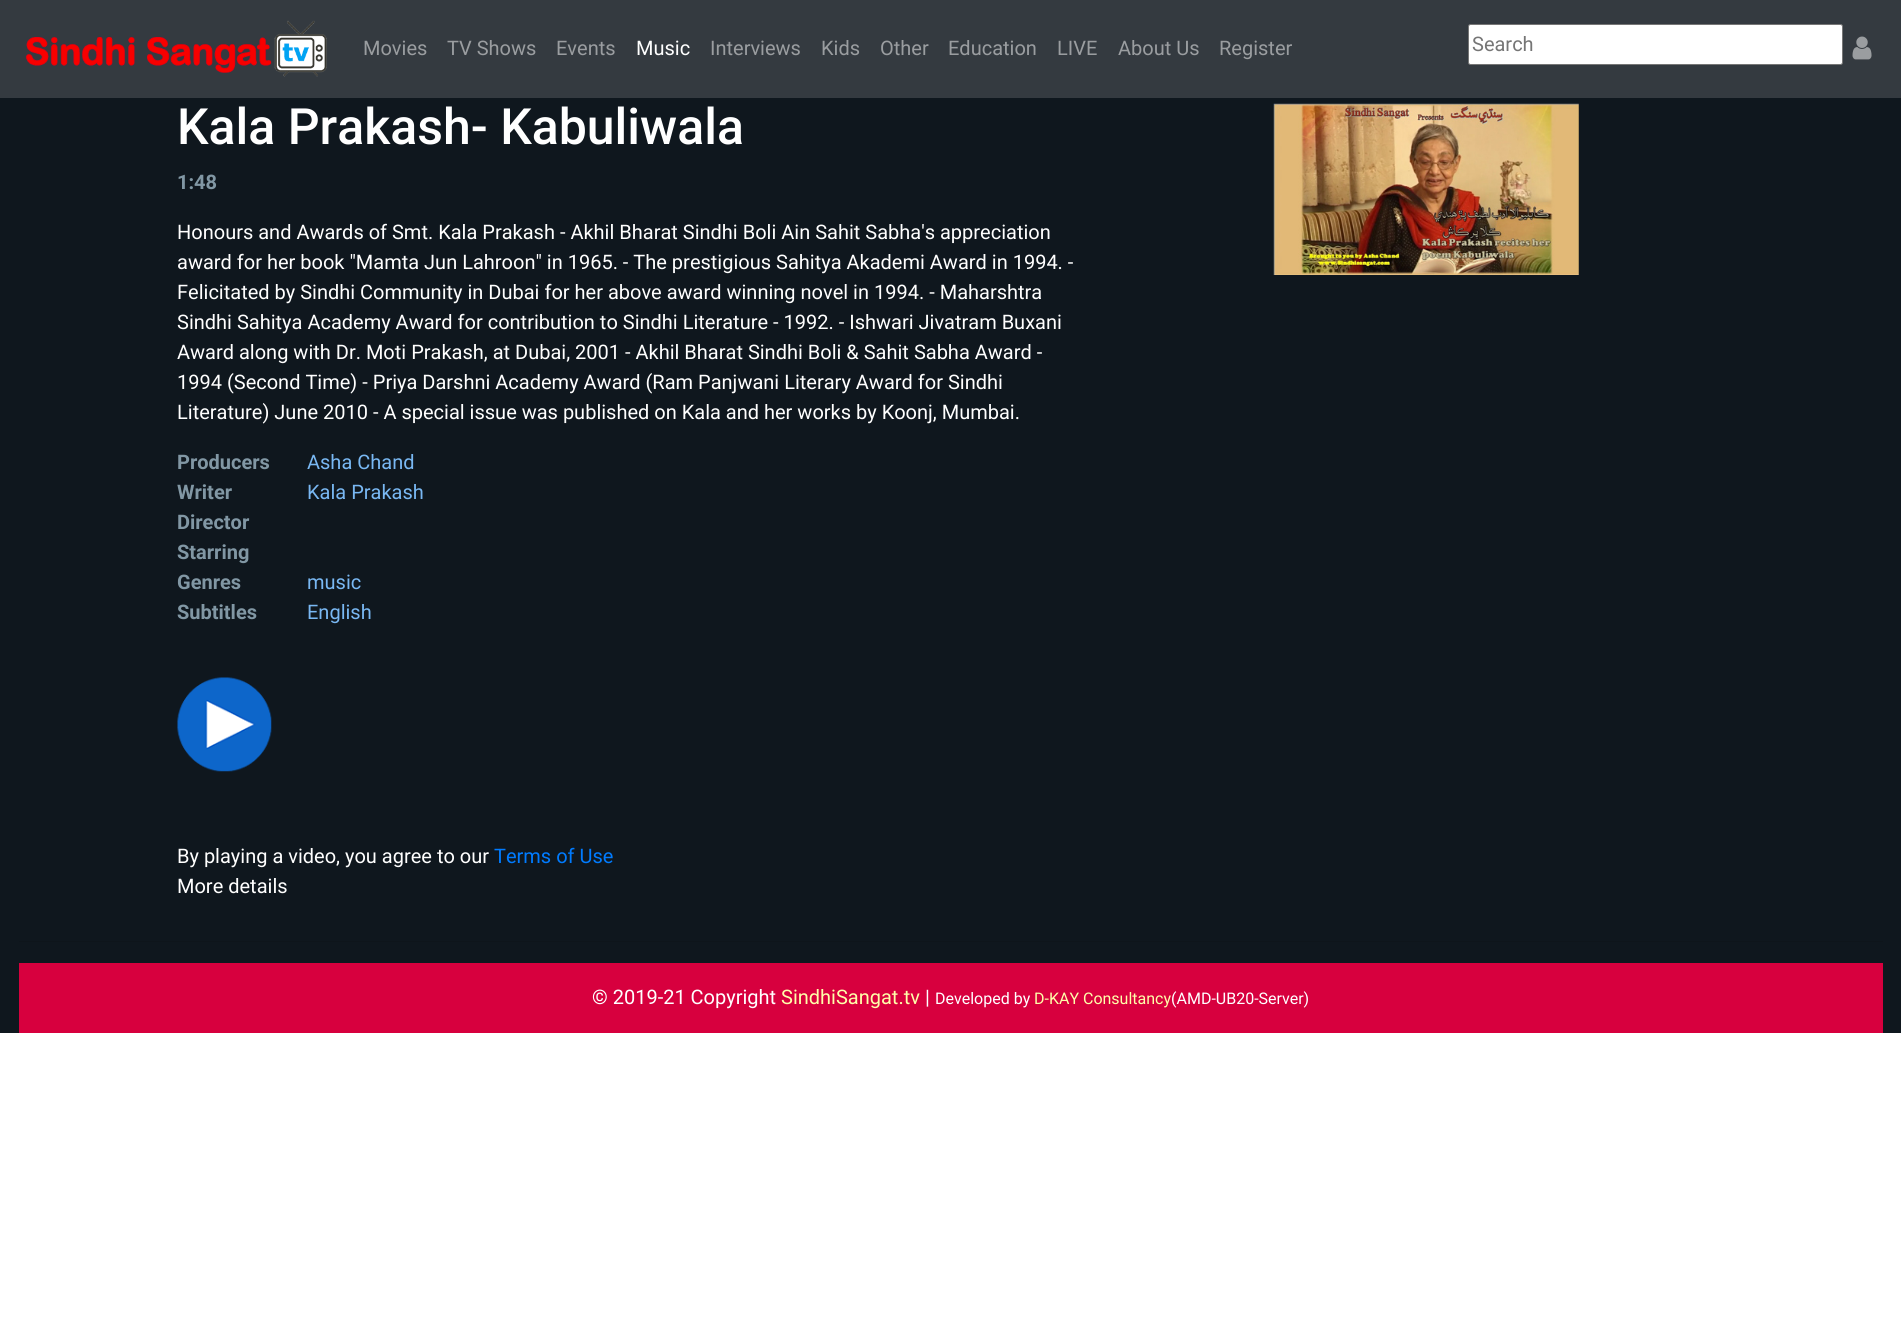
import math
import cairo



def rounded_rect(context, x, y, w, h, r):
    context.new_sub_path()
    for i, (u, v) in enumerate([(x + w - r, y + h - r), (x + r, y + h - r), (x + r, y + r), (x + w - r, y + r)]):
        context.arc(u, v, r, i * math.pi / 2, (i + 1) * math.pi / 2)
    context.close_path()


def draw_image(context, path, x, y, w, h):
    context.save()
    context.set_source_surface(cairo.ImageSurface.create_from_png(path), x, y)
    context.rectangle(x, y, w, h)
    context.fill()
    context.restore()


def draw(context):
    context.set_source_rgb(1, 1, 1)
    context.paint()
    context.set_source_rgb(52 / 255, 58 / 255, 64 / 255)
    context.rectangle(0, 0, 1901, 98)
    context.fill()
    draw_image(context, "images/1.png", 25, 20, 302, 57)
    context.set_source_rgb(1, 1, 1)
    rounded_rect(context, 1468.5, 24.5, 374, 40, 2)
    context.fill_preserve()
    context.set_source_rgb(118 / 255, 118 / 255, 118 / 255)
    context.set_line_width(1)
    context.stroke()
    draw_image(context, "images/2.png", 1852, 36, 20, 24)
    context.set_source_rgb(15 / 255, 23 / 255, 30 / 255)
    context.rectangle(0, 98, 1901, 935)
    context.fill()
    draw_image(context, "images/3.png", 177, 677, 95, 95)
    draw_image(context, "images/4.png", 1273, 103, 306, 172)
    context.set_source_rgb(14 / 255, 21 / 255, 27 / 255)
    context.rectangle(19, 941, 1864, 1)
    context.fill()
    context.set_source_rgb(215 / 255, 0, 62 / 255)
    context.rectangle(19, 963, 1864, 70)
    context.fill()
    context.select_font_face("Roboto")
    context.set_font_size(20)
    context.set_source_rgb(154 / 255, 157 / 255, 160 / 255)
    context.move_to(363, 55)
    context.show_text("Movies")
    context.move_to(447, 55)
    context.show_text("TV Shows")
    context.move_to(556, 55)
    context.show_text("Events")
    context.set_source_rgb(1, 1, 1)
    context.move_to(636, 55)
    context.show_text("Music")
    context.set_source_rgb(154 / 255, 157 / 255, 160 / 255)
    context.move_to(710, 55)
    context.show_text("Interviews")
    context.move_to(821, 55)
    context.show_text("Kids")
    context.move_to(880, 55)
    context.show_text("Other")
    context.move_to(948, 55)
    context.show_text("Education")
    context.move_to(1057, 55)
    context.show_text("LIVE")
    context.move_to(1118, 55)
    context.show_text("About Us")
    context.move_to(1219, 55)
    context.show_text("Register")
    context.set_source_rgb(117 / 255, 117 / 255, 117 / 255)
    context.move_to(1472, 51)
    context.show_text("Search")
    context.select_font_face("Roboto Medium")
    context.set_font_size(50)
    context.set_source_rgb(1, 1, 1)
    context.move_to(177, 144)
    context.show_text("Kala Prakash- Kabuliwala")
    context.select_font_face("Roboto", cairo.FontSlant.NORMAL, cairo.FontWeight.BOLD)
    context.set_font_size(20)
    context.set_source_rgb(129 / 255, 151 / 255, 164 / 255)
    context.move_to(177, 189)
    context.show_text("1:48")
    context.select_font_face("Roboto")
    context.set_source_rgb(1, 1, 1)
    context.move_to(177, 239)
    context.show_text("Honours and Awards of Smt. Kala Prakash - Akhil Bharat Sindhi Boli Ain Sahit Sabha's appreciation")
    context.move_to(177, 269)
    context.show_text("award for her book \"Mamta Jun Lahroon\" in 1965. - The prestigious Sahitya Akademi Award in 1994. -")
    context.move_to(177, 299)
    context.show_text("Felicitated by Sindhi Community in Dubai for her above award winning novel in 1994. - Maharshtra")
    context.move_to(177, 329)
    context.show_text("Sindhi Sahitya Academy Award for contribution to Sindhi Literature - 1992. - Ishwari Jivatram Buxani")
    context.move_to(177, 359)
    context.show_text("Award along with Dr. Moti Prakash, at Dubai, 2001 - Akhil Bharat Sindhi Boli & Sahit Sabha Award -")
    context.move_to(177, 389)
    context.show_text("1994 (Second Time) - Priya Darshni Academy Award (Ram Panjwani Literary Award for Sindhi")
    context.move_to(177, 419)
    context.show_text("Literature) June 2010 - A special issue was published on Kala and her works by Koonj, Mumbai.")
    context.select_font_face("Roboto", cairo.FontSlant.NORMAL, cairo.FontWeight.BOLD)
    context.set_source_rgb(129 / 255, 151 / 255, 164 / 255)
    context.move_to(177, 469)
    context.show_text("Producers")
    context.select_font_face("Roboto")
    context.set_source_rgb(121 / 255, 184 / 255, 243 / 255)
    context.move_to(307, 469)
    context.show_text("Asha Chand")
    context.select_font_face("Roboto", cairo.FontSlant.NORMAL, cairo.FontWeight.BOLD)
    context.set_source_rgb(129 / 255, 151 / 255, 164 / 255)
    context.move_to(177, 499)
    context.show_text("Writer")
    context.select_font_face("Roboto")
    context.set_source_rgb(121 / 255, 184 / 255, 243 / 255)
    context.move_to(307, 499)
    context.show_text("Kala Prakash")
    context.select_font_face("Roboto", cairo.FontSlant.NORMAL, cairo.FontWeight.BOLD)
    context.set_source_rgb(129 / 255, 151 / 255, 164 / 255)
    context.move_to(177, 529)
    context.show_text("Director")
    context.move_to(177, 559)
    context.show_text("Starring")
    context.move_to(177, 589)
    context.show_text("Genres")
    context.select_font_face("Roboto")
    context.set_source_rgb(121 / 255, 184 / 255, 243 / 255)
    context.move_to(307, 589)
    context.show_text("music")
    context.select_font_face("Roboto", cairo.FontSlant.NORMAL, cairo.FontWeight.BOLD)
    context.set_source_rgb(129 / 255, 151 / 255, 164 / 255)
    context.move_to(177, 619)
    context.show_text("Subtitles")
    context.select_font_face("Roboto")
    context.set_source_rgb(121 / 255, 184 / 255, 243 / 255)
    context.move_to(307, 619)
    context.show_text("English")
    context.set_source_rgb(1, 1, 1)
    context.move_to(177, 863)
    context.show_text("By playing a video, you agree to our")
    context.set_source_rgb(0, 123 / 255, 1)
    context.move_to(494, 863)
    context.show_text("Terms of Use")
    context.set_source_rgb(1, 1, 1)
    context.move_to(177, 893)
    context.show_text("More details")
    context.move_to(592, 1004)
    context.show_text("© 2019-21 Copyright")
    context.set_source_rgb(1, 1, 170 / 255)
    context.move_to(781, 1004)
    context.show_text("SindhiSangat.tv")
    context.set_source_rgb(1, 1, 1)
    context.move_to(925, 1004)
    context.show_text("|")
    context.set_font_size(16)
    context.move_to(935, 1004)
    context.show_text("Developed by")
    context.set_source_rgb(1, 1, 170 / 255)
    context.move_to(1034, 1004)
    context.show_text("D-KAY Consultancy")
    context.set_source_rgb(1, 1, 1)
    context.move_to(1171, 1004)
    context.show_text("(AMD-UB20-Server)")


surface = cairo.ImageSurface(cairo.Format.RGB24, 1901, 1344)
context = cairo.Context(surface)
options = cairo.FontOptions()
options.set_hint_metrics(cairo.HintMetrics.OFF)
options.set_hint_style(cairo.HintStyle.NONE)
context.set_font_options(options)
context.set_miter_limit(4)
draw(context)
surface.write_to_png("out.png")
